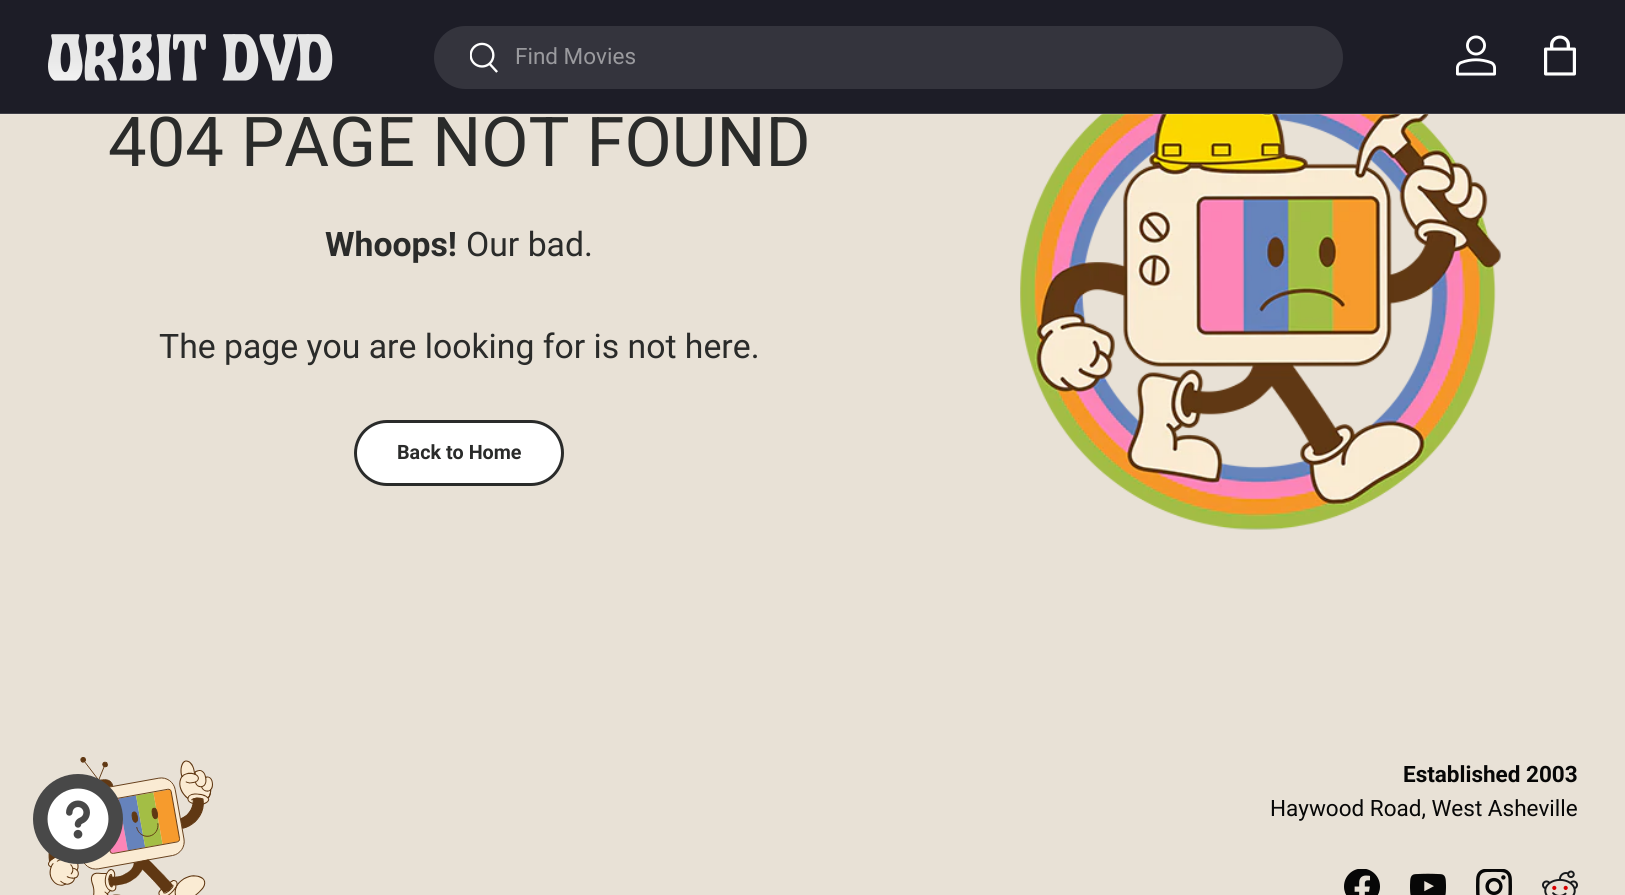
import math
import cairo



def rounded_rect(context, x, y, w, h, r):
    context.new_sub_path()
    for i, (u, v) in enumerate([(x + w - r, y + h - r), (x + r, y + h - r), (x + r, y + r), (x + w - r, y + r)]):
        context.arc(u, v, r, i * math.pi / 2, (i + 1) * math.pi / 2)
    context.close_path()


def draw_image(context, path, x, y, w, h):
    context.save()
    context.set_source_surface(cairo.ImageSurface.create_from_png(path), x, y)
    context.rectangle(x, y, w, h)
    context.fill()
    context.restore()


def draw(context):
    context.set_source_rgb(232 / 255, 225 / 255, 214 / 255)
    context.paint()
    context.set_source_rgb(29 / 255, 29 / 255, 39 / 255)
    context.rectangle(0, 0, 1625, 114)
    context.fill()
    draw_image(context, "images/5.png", 1020, 114, 481, 416)
    context.set_source_rgba(1, 1, 1, 0.15)
    context.rectangle(0, 113, 1625, 2)
    context.fill()
    draw_image(context, "images/1.png", 48, 34, 285, 47)
    context.set_source_rgb(52 / 255, 52 / 255, 61 / 255)
    rounded_rect(context, 434, 26, 909, 63, 31.5)
    context.fill()
    draw_image(context, "images/2.png", 470, 42, 28, 31)
    draw_image(context, "images/3.png", 1456, 35, 40, 41)
    draw_image(context, "images/4.png", 1544, 35, 32, 41)
    context.save()
    rounded_rect(context, 354, 420, 210, 66, 33)
    context.clip()
    gradient = cairo.LinearGradient(-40, 379, 550, 527)
    gradient.add_color_stop_rgba(0.6, 42 / 255, 43 / 255, 42 / 255, 0.07)
    gradient.add_color_stop_rgba(0.6, 1, 1, 1, 1)
    gradient.add_color_stop_rgba(1, 1, 1, 1, 1)
    context.set_source(gradient)
    context.rectangle(354, 423, 207, 60)
    context.fill()
    context.restore()
    rounded_rect(context, 355.5, 421.5, 207, 63, 31.5)
    context.set_source_rgb(42 / 255, 43 / 255, 42 / 255)
    context.set_line_width(3)
    context.stroke()
    draw_image(context, "images/7.png", 48, 757, 165, 138)
    context.set_source_rgb(72 / 255, 72 / 255, 72 / 255)
    context.arc(78, 819, 45, 0, 2 * math.pi)
    context.fill()
    draw_image(context, "images/6.png", 47, 788, 62, 62)
    draw_image(context, "images/8.png", 1344, 869, 36, 26)
    draw_image(context, "images/9.png", 1410, 873, 36, 22)
    draw_image(context, "images/10.png", 1476, 869, 36, 26)
    draw_image(context, "images/11.png", 1542, 870, 36, 25)
    context.select_font_face("Roboto")
    context.set_font_size(22.5)
    context.set_source_rgb(154 / 255, 154 / 255, 158 / 255)
    context.move_to(515, 64)
    context.show_text("Find Movies")
    context.set_font_size(68.75)
    context.set_source_rgb(42 / 255, 43 / 255, 42 / 255)
    context.move_to(108, 166)
    context.show_text("404 PAGE NOT FOUND")
    context.select_font_face("Roboto", cairo.FontSlant.NORMAL, cairo.FontWeight.BOLD)
    context.set_font_size(33.75)
    context.move_to(325, 256)
    context.show_text("Whoops!")
    context.select_font_face("Roboto")
    context.move_to(466, 256)
    context.show_text("Our bad.")
    context.move_to(159, 358)
    context.show_text("The page you are looking for is not here.")
    context.select_font_face("Roboto", cairo.FontSlant.NORMAL, cairo.FontWeight.BOLD)
    context.set_font_size(19.75)
    context.move_to(397, 459)
    context.show_text("Back to Home")
    context.set_font_size(22.5)
    context.set_source_rgb(7 / 255, 7 / 255, 7 / 255)
    context.move_to(1403, 782)
    context.show_text("Established 2003")
    context.select_font_face("Roboto")
    context.move_to(1270, 816)
    context.show_text("Haywood Road, West Asheville")


surface = cairo.ImageSurface(cairo.Format.RGB24, 1625, 895)
context = cairo.Context(surface)
options = cairo.FontOptions()
options.set_hint_metrics(cairo.HintMetrics.OFF)
options.set_hint_style(cairo.HintStyle.NONE)
context.set_font_options(options)
context.set_miter_limit(4)
draw(context)
surface.write_to_png("out.png")
